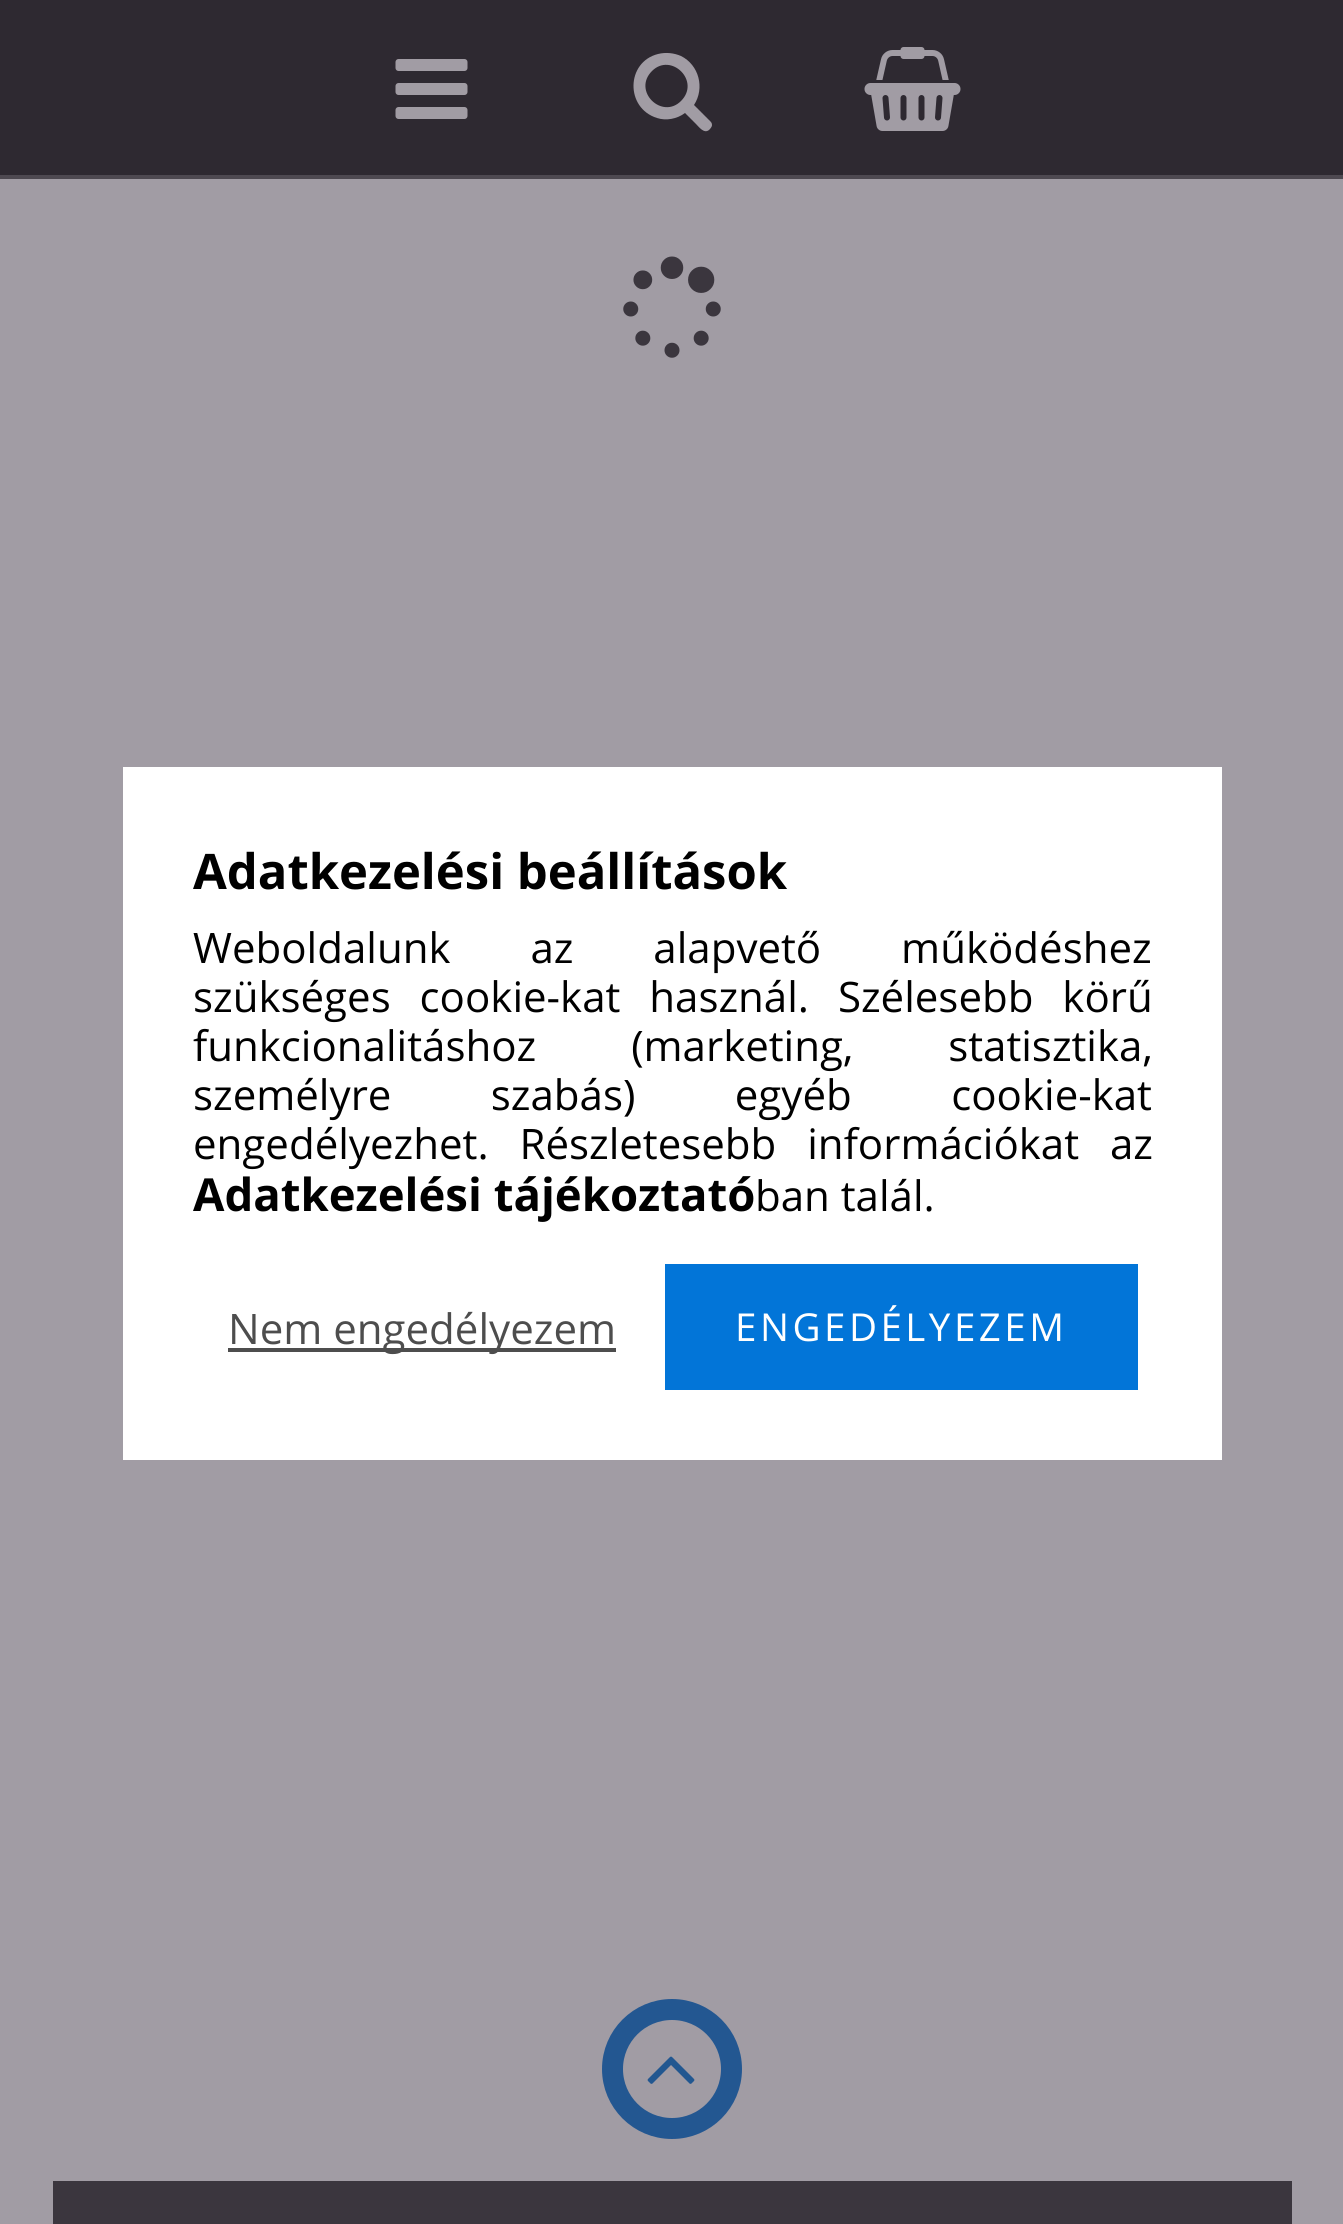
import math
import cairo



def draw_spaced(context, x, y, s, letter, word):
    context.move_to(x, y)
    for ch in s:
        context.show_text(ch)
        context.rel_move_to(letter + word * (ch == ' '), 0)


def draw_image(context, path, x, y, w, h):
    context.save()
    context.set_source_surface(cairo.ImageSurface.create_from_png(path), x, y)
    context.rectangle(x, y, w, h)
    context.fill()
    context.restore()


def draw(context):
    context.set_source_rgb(161 / 255, 156 / 255, 164 / 255)
    context.paint()
    context.set_source_rgb(46 / 255, 41 / 255, 49 / 255)
    context.rectangle(0, 0, 1343, 175)
    context.fill()
    context.set_source_rgb(78 / 255, 73 / 255, 81 / 255)
    context.rectangle(0, 175, 1343, 4)
    context.fill()
    draw_image(context, "images/1.png", 395, 59, 73, 60)
    context.set_source_rgb(161 / 255, 156 / 255, 164 / 255)
    context.new_path()
    context.move_to(681, 101)
    context.curve_to(701, 81, 671, 52, 652, 71)
    context.curve_to(632, 91, 662, 120, 681, 101)
    context.close_path()
    context.move_to(712, 125)
    context.curve_to(712, 127, 710, 129, 709, 130)
    context.curve_to(704, 134, 699, 127, 696, 124)
    context.line_to(685, 113)
    context.curve_to(677, 119, 666, 121, 657, 118)
    context.curve_to(625, 108, 626, 62, 658, 54)
    context.curve_to(666, 52, 674, 53, 681, 56)
    context.curve_to(699, 65, 705, 88, 694, 105)
    context.line_to(710, 121)
    context.curve_to(711, 122, 712, 123, 712, 125)
    context.close_path()
    context.fill()
    draw_image(context, "images/2.png", 864, 47, 97, 84)
    draw_image(context, "images/3.png", 623, 256, 98, 102)
    context.set_source_rgb(59 / 255, 54 / 255, 62 / 255)
    context.rectangle(53, 2181, 1239, 43)
    context.fill()
    context.set_source_rgb(1, 1, 1)
    context.rectangle(123, 767, 1099, 693)
    context.fill()
    context.set_source_rgb(77 / 255, 77 / 255, 77 / 255)
    context.rectangle(228, 1348, 388, 4)
    context.fill()
    context.set_source_rgb(2 / 255, 117 / 255, 216 / 255)
    context.rectangle(665, 1264, 473, 126)
    context.fill()
    context.arc(672, 2069, 59.5, 0, 2 * math.pi)
    context.set_source_rgb(35 / 255, 87 / 255, 145 / 255)
    context.set_line_width(21)
    context.stroke()
    draw_image(context, "images/4.png", 647, 2056, 48, 28)
    context.select_font_face("Open Sans", cairo.FontSlant.NORMAL, cairo.FontWeight.BOLD)
    context.set_font_size(49)
    context.set_source_rgb(0, 0, 0)
    context.move_to(193, 889)
    context.show_text("Adatkezelési beállítások")
    context.select_font_face("Open Sans")
    context.set_font_size(42)
    draw_spaced(context, 193, 963, "Weboldalunk az alapvető működéshez", 0, 69)
    draw_spaced(context, 193, 1012, "szükséges cookie-kat használ. Szélesebb körű", 0, 18)
    draw_spaced(context, 193, 1061, "funkcionalitáshoz (marketing, statisztika,", 0, 84)
    draw_spaced(context, 193, 1110, "személyre szabás) egyéb cookie-kat", 0, 88.5)
    draw_spaced(context, 193, 1159, "engedélyezhet. Részletesebb információkat az", 0, 20)
    context.select_font_face("Open Sans", cairo.FontSlant.NORMAL, cairo.FontWeight.BOLD)
    context.set_font_size(45.5)
    context.move_to(193, 1211)
    context.show_text("Adatkezelési tájékoztató")
    context.select_font_face("Open Sans")
    context.set_font_size(42)
    context.move_to(755, 1211)
    context.show_text("ban talál.")
    context.set_source_rgb(77 / 255, 77 / 255, 77 / 255)
    context.move_to(228, 1344)
    context.show_text("Nem engedélyezem")
    context.set_font_size(38.5)
    context.set_source_rgb(1, 1, 1)
    draw_spaced(context, 735, 1341, "ENGEDÉLYEZEM", 3.5, 0)


surface = cairo.ImageSurface(cairo.Format.RGB24, 1343, 2224)
context = cairo.Context(surface)
options = cairo.FontOptions()
options.set_hint_metrics(cairo.HintMetrics.OFF)
options.set_hint_style(cairo.HintStyle.NONE)
context.set_font_options(options)
context.set_miter_limit(4)
draw(context)
surface.write_to_png("out.png")
